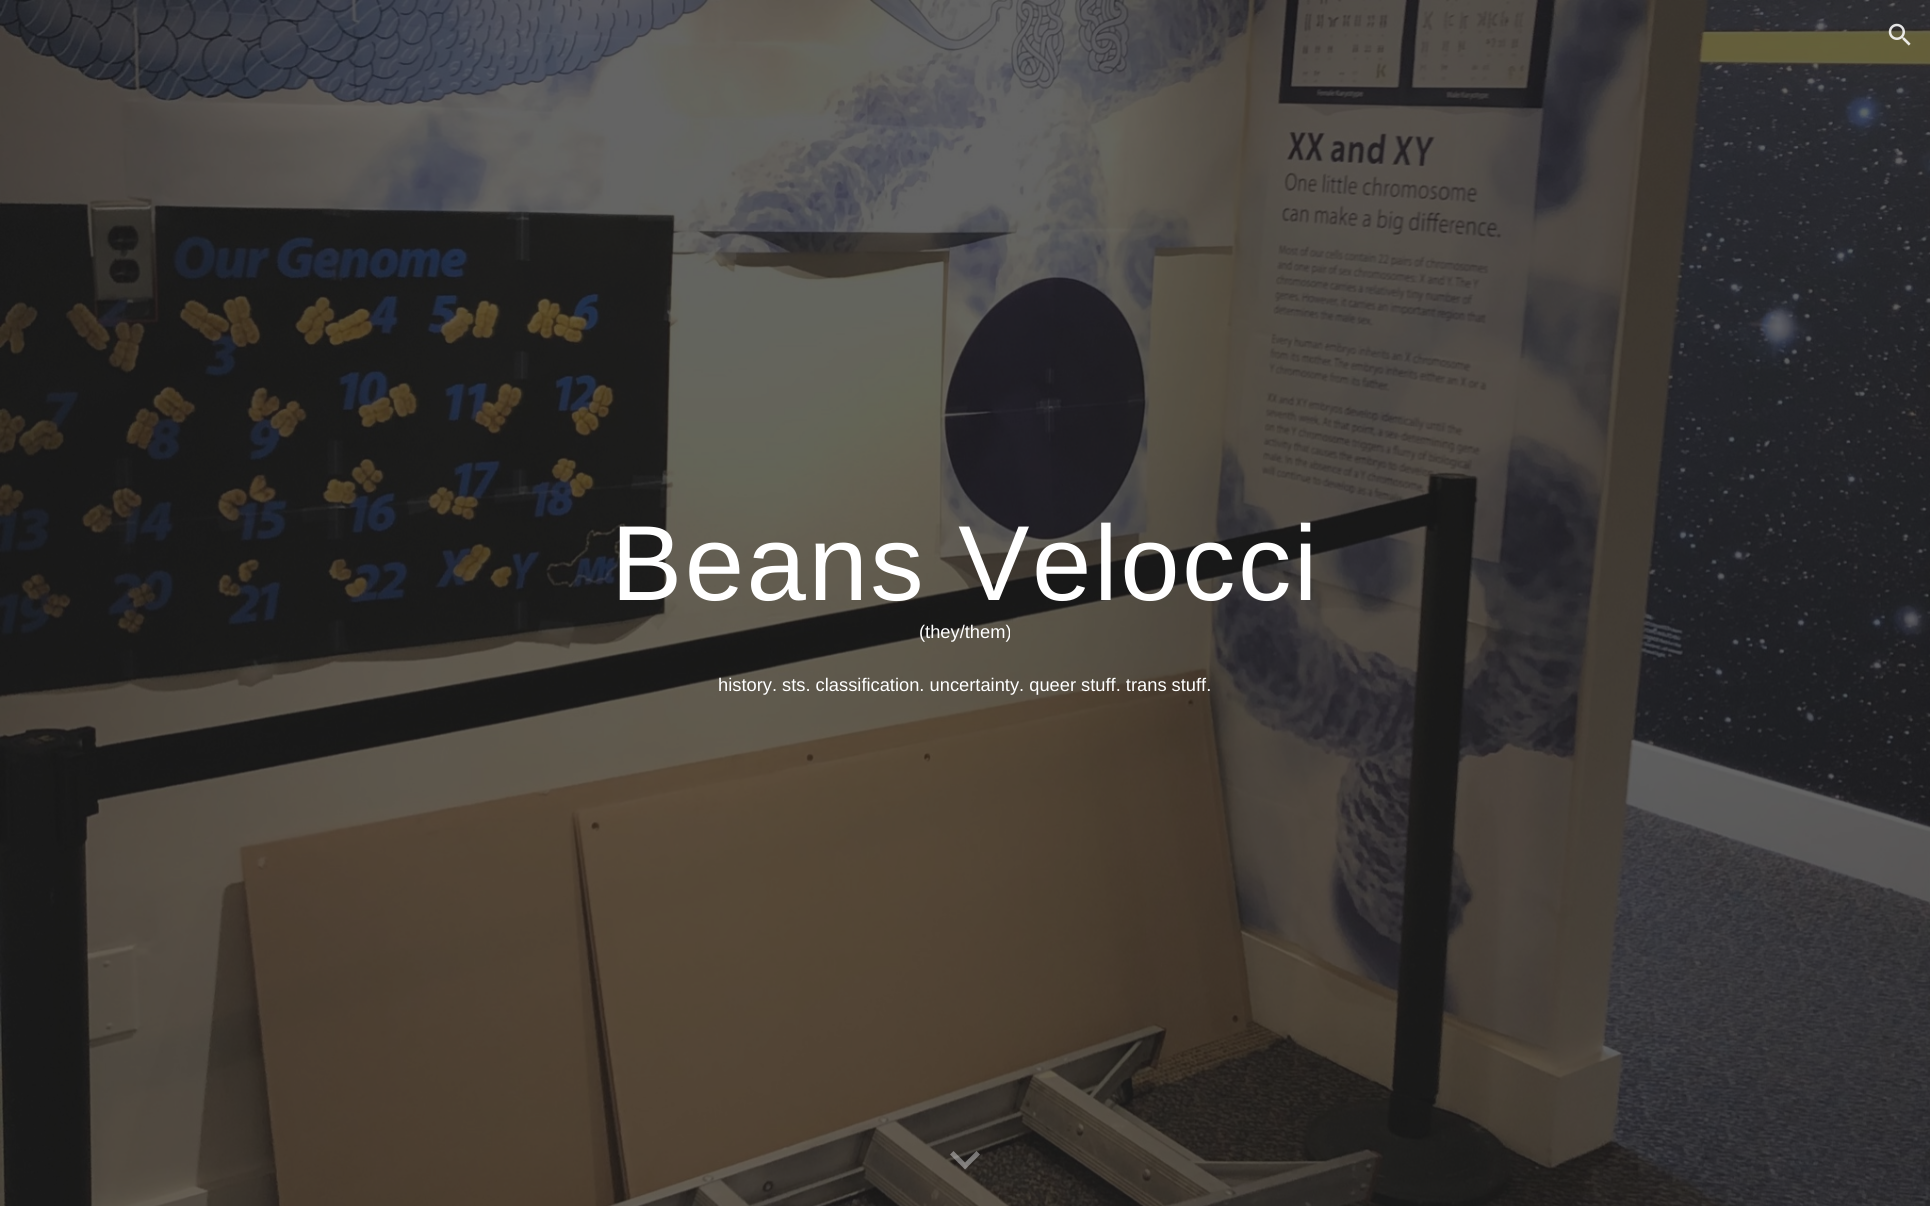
import math
import cairo

surface = cairo.ImageSurface(cairo.FORMAT_RGB24, 1930, 1206)
cr = cairo.Context(surface)
options = cairo.FontOptions()
options.set_hint_metrics(cairo.HINT_METRICS_OFF)
options.set_hint_style(cairo.HINT_STYLE_NONE)
cr.set_font_options(options)
cr.set_miter_limit(4)


def rgb(code):
    cr.set_source_rgb(*(v / 255 for v in bytes.fromhex(code[-6:])))


def tracked(x, y, s, letter, word):
    cr.move_to(x, y)
    for ch in s:
        cr.show_text(ch)
        cr.rel_move_to(letter + word * (ch == ' '), 0)


def image(path, x, y, w, h):
    cr.save()
    cr.set_source_surface(cairo.ImageSurface.create_from_png(path), x, y)
    cr.rectangle(x, y, w, h)
    cr.fill()
    cr.restore()


rgb("#ffffff")
cr.paint()
image("img/2.png", 0, 0, 1930, 1206)
image("img/1.png", 1888, 23, 23, 23)
cr.set_source_rgba(1, 1, 1, 0.4)
cr.new_path()
cr.move_to(953.5, 1151)
cr.line_to(965, 1162.5)
cr.line_to(976.5, 1151)
cr.line_to(980, 1154.5)
cr.line_to(965, 1169.5)
cr.line_to(950, 1154.5)
cr.close_path()
cr.fill()
cr.select_font_face("Liberation Sans")
cr.set_font_size(106.75)
rgb("#ffffff")
tracked(611, 600, "Beans Velocci", 2.5, 0)
cr.set_font_size(18.3)
cr.move_to(919, 638)
cr.show_text("(they/them)")
cr.move_to(718, 691)
cr.show_text("history. sts. classification. uncertainty. queer stuff. trans stuff.")
surface.write_to_png("page.png")
